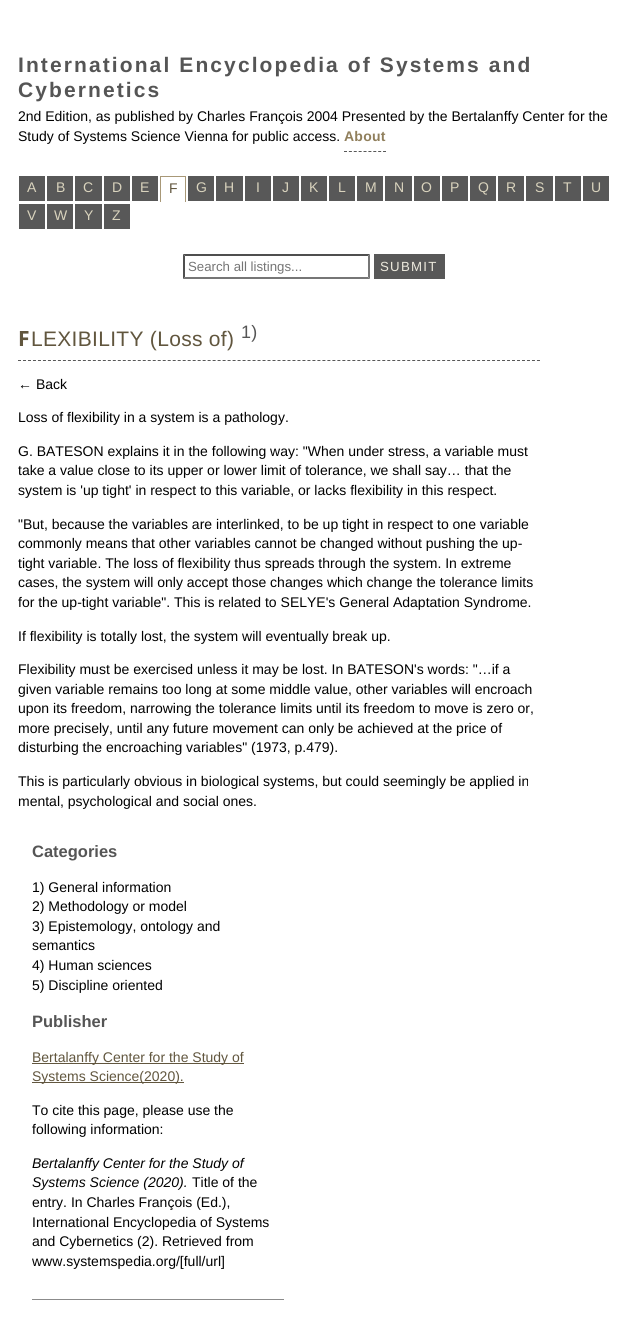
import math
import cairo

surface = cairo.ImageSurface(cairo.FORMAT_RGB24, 628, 1337)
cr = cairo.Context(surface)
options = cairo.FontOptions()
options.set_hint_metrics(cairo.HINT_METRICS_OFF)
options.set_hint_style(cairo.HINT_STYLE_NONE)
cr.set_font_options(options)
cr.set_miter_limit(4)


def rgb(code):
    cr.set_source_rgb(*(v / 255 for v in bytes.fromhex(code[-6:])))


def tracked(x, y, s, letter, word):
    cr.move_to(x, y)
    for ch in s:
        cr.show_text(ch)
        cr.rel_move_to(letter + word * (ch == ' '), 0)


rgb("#ffffff")
cr.paint()
cr.new_path()
cr.move_to(344, 151.5)
cr.line_to(386, 151.5)
rgb("#585858")
cr.set_line_width(1)
cr.set_dash([3, 1.88])
cr.stroke()
for x, y, w, h, color in [
    (19, 176, 26, 25, "#585858"),
    (47, 176, 26, 25, "#585858"),
    (75, 176, 27, 25, "#585858"),
    (104, 176, 26, 25, "#585858"),
    (132, 176, 26, 25, "#585858"),
    (160, 176, 26, 1, "#a89877"),
    (185, 176, 1, 26, "#a89877"),
    (160, 176, 1, 26, "#a89877"),
    (188, 176, 26, 25, "#585858"),
    (216, 176, 27, 25, "#585858"),
    (245, 176, 26, 25, "#585858"),
    (273, 176, 26, 25, "#585858"),
    (301, 176, 26, 25, "#585858"),
    (329, 176, 26, 25, "#585858"),
    (357, 176, 26, 25, "#585858"),
    (385, 176, 27, 25, "#585858"),
    (414, 176, 26, 25, "#585858"),
    (442, 176, 26, 25, "#585858"),
    (470, 176, 26, 25, "#585858"),
    (498, 176, 26, 25, "#585858"),
    (526, 176, 27, 25, "#585858"),
    (555, 176, 26, 25, "#585858"),
    (583, 176, 26, 25, "#585858"),
    (19, 204, 26, 25, "#585858"),
    (47, 204, 26, 25, "#585858"),
    (75, 204, 27, 25, "#585858"),
    (104, 204, 26, 25, "#585858"),
]:
    rgb(color)
    cr.rectangle(x, y, w, h)
    cr.fill()
rgb("#4f4f4f")
cr.new_path()
cr.move_to(183, 254)
cr.line_to(370, 254)
cr.line_to(368, 256)
cr.line_to(185, 256)
cr.close_path()
cr.fill()
rgb("#767676")
cr.new_path()
cr.move_to(370, 254)
cr.line_to(370, 279)
cr.line_to(368, 277)
cr.line_to(368, 256)
cr.close_path()
cr.fill()
cr.new_path()
cr.move_to(370, 279)
cr.line_to(183, 279)
cr.line_to(185, 277)
cr.line_to(368, 277)
cr.close_path()
cr.fill()
rgb("#4f4f4f")
cr.new_path()
cr.move_to(183, 279)
cr.line_to(183, 254)
cr.line_to(185, 256)
cr.line_to(185, 277)
cr.close_path()
cr.fill()
rgb("#585858")
cr.rectangle(374, 254, 71, 25)
cr.fill()
cr.new_path()
cr.move_to(18, 360.5)
cr.line_to(540, 360.5)
cr.set_dash([3, 1.99])
cr.stroke()
for x, y, w, h, color in [
    (32, 1063, 212, 1, "#61563e"),
    (32, 1082, 152, 1, "#61563e"),
    (32, 1299, 252, 1, "#8b8b8b"),
]:
    rgb(color)
    cr.rectangle(x, y, w, h)
    cr.fill()
cr.select_font_face("Liberation Sans", cairo.FONT_SLANT_NORMAL, cairo.FONT_WEIGHT_BOLD)
cr.set_font_size(21)
rgb("#555555")
tracked(18, 72, "International Encyclopedia of Systems and", 2.1, 0)
tracked(18, 97, "Cybernetics", 2.1, 0)
cr.select_font_face("Liberation Sans")
cr.set_font_size(14)
rgb("#000000")
cr.move_to(18, 121)
cr.show_text("2nd Edition, as published by Charles François 2004 Presented by the Bertalanffy Center for the")
cr.move_to(18, 141)
cr.show_text("Study of Systems Science Vienna for public access.")
cr.select_font_face("Liberation Sans", cairo.FONT_SLANT_NORMAL, cairo.FONT_WEIGHT_BOLD)
rgb("#907f5c")
tracked(344, 141, "About", 0.25, 0)
cr.select_font_face("Liberation Sans")
rgb("#d9d3bd")
for x, y, s in [
    (27, 192, "A"),
    (56, 192, "B"),
    (83, 192, "C"),
    (112, 192, "D"),
    (140, 192, "E"),
]:
    cr.move_to(x, y)
    cr.show_text(s)
rgb("#61563e")
cr.move_to(169, 193)
cr.show_text("F")
rgb("#d9d3bd")
for x, y, s in [
    (196, 192, "G"),
    (224, 192, "H"),
    (256, 192, "I"),
    (282, 192, "J"),
    (309, 192, "K"),
    (338, 192, "L"),
    (365, 192, "M"),
    (394, 192, "N"),
    (421, 192, "O"),
    (450, 192, "P"),
    (478, 192, "Q"),
    (506, 192, "R"),
    (535, 192, "S"),
    (563, 192, "T"),
    (591, 192, "U"),
    (27, 220, "V"),
    (54, 220, "W"),
    (84, 220, "Y"),
    (112, 220, "Z"),
]:
    cr.move_to(x, y)
    cr.show_text(s)
cr.set_font_size(13.25)
rgb("#757575")
cr.move_to(188, 271)
cr.show_text("Search all listings...")
rgb("#ece9dd")
tracked(380, 271, "SUBMIT", 1.25, 0)
cr.select_font_face("Noto Sans", cairo.FONT_SLANT_NORMAL, cairo.FONT_WEIGHT_BOLD)
cr.set_font_size(21)
rgb("#61563e")
tracked(18, 346, "F", 0.3, 0)
cr.select_font_face("Liberation Sans")
tracked(31, 346, "LEXIBILITY (Loss of)", 0.3, 0)
cr.set_font_size(18)
rgb("#555555")
tracked(241, 338, "1)", 0.3, 0)
cr.set_font_size(14)
rgb("#000000")
for x, y, s in [
    (18, 389, "← Back"),
    (18, 422, "Loss of flexibility in a system is a pathology."),
    (18, 456, "G. BATESON explains it in the following way: \"When under stress, a variable must"),
    (18, 475, "take a value close to its upper or lower limit of tolerance, we shall say… that the"),
    (18, 495, "system is 'up tight' in respect to this variable, or lacks flexibility in this respect."),
    (18, 529, "\"But, because the variables are interlinked, to be up tight in respect to one variable"),
    (18, 548, "commonly means that other variables cannot be changed without pushing the up-"),
    (18, 568, "tight variable. The loss of flexibility thus spreads through the system. In extreme"),
    (18, 587, "cases, the system will only accept those changes which change the tolerance limits"),
    (18, 607, "for the up-tight variable\". This is related to SELYE's General Adaptation Syndrome."),
    (18, 641, "If flexibility is totally lost, the system will eventually break up."),
    (18, 674, "Flexibility must be exercised unless it may be lost. In BATESON's words: \"…if a"),
    (18, 694, "given variable remains too long at some middle value, other variables will encroach"),
    (18, 713, "upon its freedom, narrowing the tolerance limits until its freedom to move is zero or,"),
    (18, 733, "more precisely, until any future movement can only be achieved at the price of"),
    (18, 752, "disturbing the encroaching variables\" (1973, p.479)."),
    (18, 786, "This is particularly obvious in biological systems, but could seemingly be applied in"),
    (18, 806, "mental, psychological and social ones."),
]:
    cr.move_to(x, y)
    cr.show_text(s)
cr.select_font_face("Liberation Sans", cairo.FONT_SLANT_NORMAL, cairo.FONT_WEIGHT_BOLD)
cr.set_font_size(16.5)
rgb("#555555")
cr.move_to(32, 857)
cr.show_text("Categories")
cr.select_font_face("Liberation Sans")
cr.set_font_size(14)
rgb("#000000")
for x, y, s in [
    (32, 892, "1) General information"),
    (32, 911, "2) Methodology or model"),
    (32, 931, "3) Epistemology, ontology and"),
    (32, 950, "semantics"),
    (32, 970, "4) Human sciences"),
    (32, 990, "5) Discipline oriented"),
]:
    cr.move_to(x, y)
    cr.show_text(s)
cr.select_font_face("Liberation Sans", cairo.FONT_SLANT_NORMAL, cairo.FONT_WEIGHT_BOLD)
cr.set_font_size(16.5)
rgb("#555555")
cr.move_to(32, 1027)
cr.show_text("Publisher")
cr.select_font_face("Liberation Sans")
cr.set_font_size(14)
rgb("#61563e")
cr.move_to(32, 1062)
cr.show_text("Bertalanffy Center for the Study of")
cr.move_to(32, 1081)
cr.show_text("Systems Science(2020).")
rgb("#000000")
cr.move_to(32, 1115)
cr.show_text("To cite this page, please use the")
cr.move_to(32, 1134)
cr.show_text("following information:")
cr.select_font_face("Liberation Sans", cairo.FONT_SLANT_ITALIC)
cr.move_to(32, 1168)
cr.show_text("Bertalanffy Center for the Study of")
cr.move_to(32, 1187)
cr.show_text("Systems Science (2020).")
cr.select_font_face("Liberation Sans")
for x, y, s in [
    (192, 1187, "Title of the"),
    (32, 1207, "entry. In Charles François (Ed.),"),
    (32, 1227, "International Encyclopedia of Systems"),
    (32, 1246, "and Cybernetics (2). Retrieved from"),
    (32, 1266, "www.systemspedia.org/[full/url]"),
]:
    cr.move_to(x, y)
    cr.show_text(s)
surface.write_to_png("page.png")
